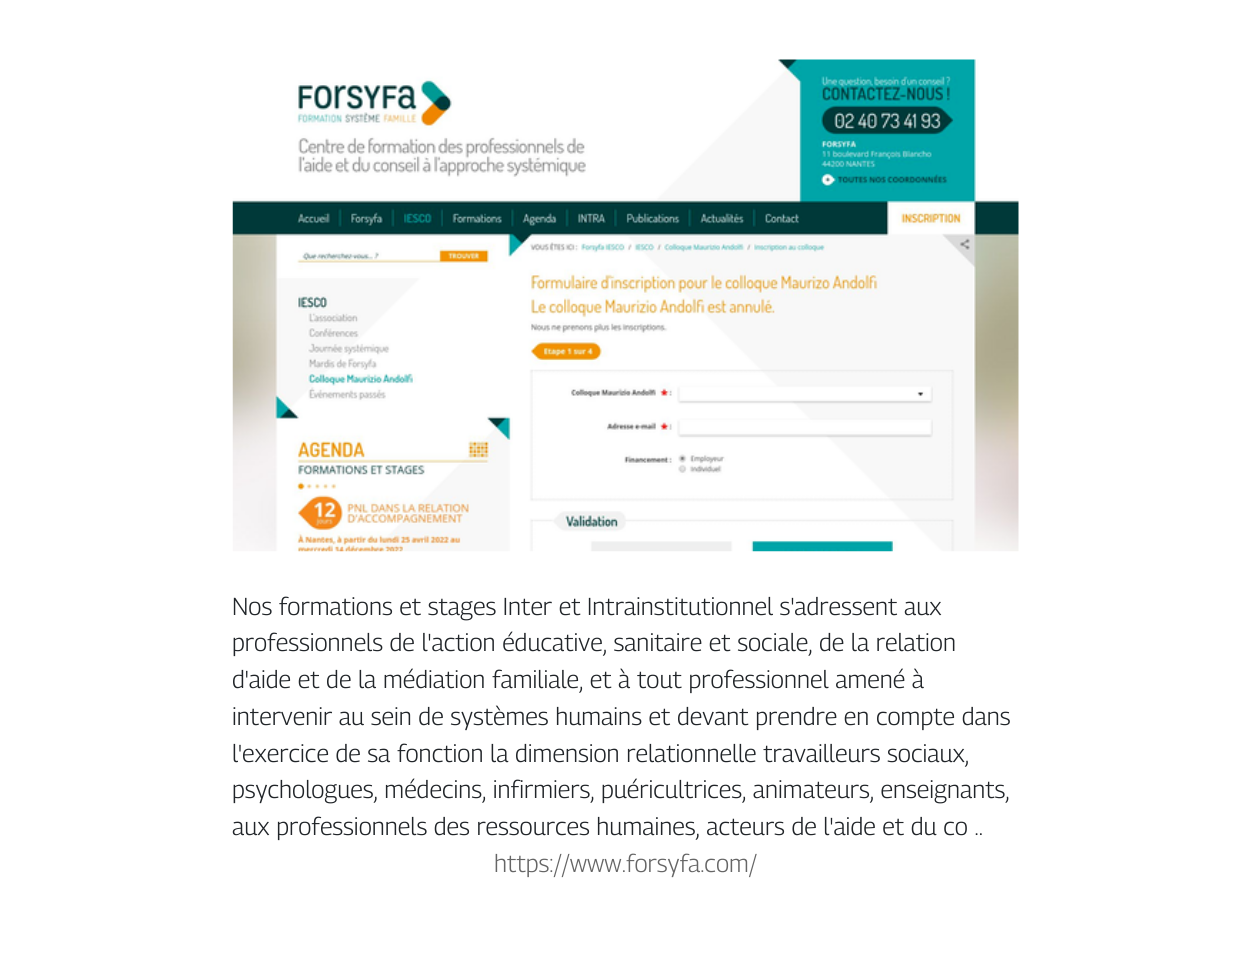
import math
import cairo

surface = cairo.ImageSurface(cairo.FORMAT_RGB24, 1250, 965)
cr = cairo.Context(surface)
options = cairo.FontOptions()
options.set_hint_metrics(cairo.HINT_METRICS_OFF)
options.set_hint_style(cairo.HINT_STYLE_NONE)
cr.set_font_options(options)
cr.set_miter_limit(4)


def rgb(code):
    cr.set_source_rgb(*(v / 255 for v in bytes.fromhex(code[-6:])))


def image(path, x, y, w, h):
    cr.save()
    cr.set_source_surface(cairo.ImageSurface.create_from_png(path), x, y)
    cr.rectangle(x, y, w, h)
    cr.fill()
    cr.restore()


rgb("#ffffff")
cr.paint()
image("img/1.png", 232, 59, 787, 493)
cr.select_font_face("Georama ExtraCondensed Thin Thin")
cr.set_font_size(24.5)
rgb("#212529")
for x, y, s in [
    (232, 615, "Nos formations et stages Inter et Intrainstitutionnel s'adressent aux"),
    (232, 651, "professionnels de l'action éducative, sanitaire et sociale, de la relation"),
    (232, 688, "d'aide et de la médiation familiale, et à tout professionnel amené à"),
    (232, 725, "intervenir au sein de systèmes humains et devant prendre en compte dans"),
    (232, 762, "l'exercice de sa fonction la dimension relationnelle travailleurs sociaux,"),
    (232, 798, "psychologues, médecins, infirmiers, puéricultrices, animateurs, enseignants,"),
    (232, 835, "aux professionnels des ressources humaines, acteurs de l'aide et du co .."),
]:
    cr.move_to(x, y)
    cr.show_text(s)
rgb("#666666")
cr.move_to(494, 872)
cr.show_text("https://www.forsyfa.com/")
surface.write_to_png("page.png")
